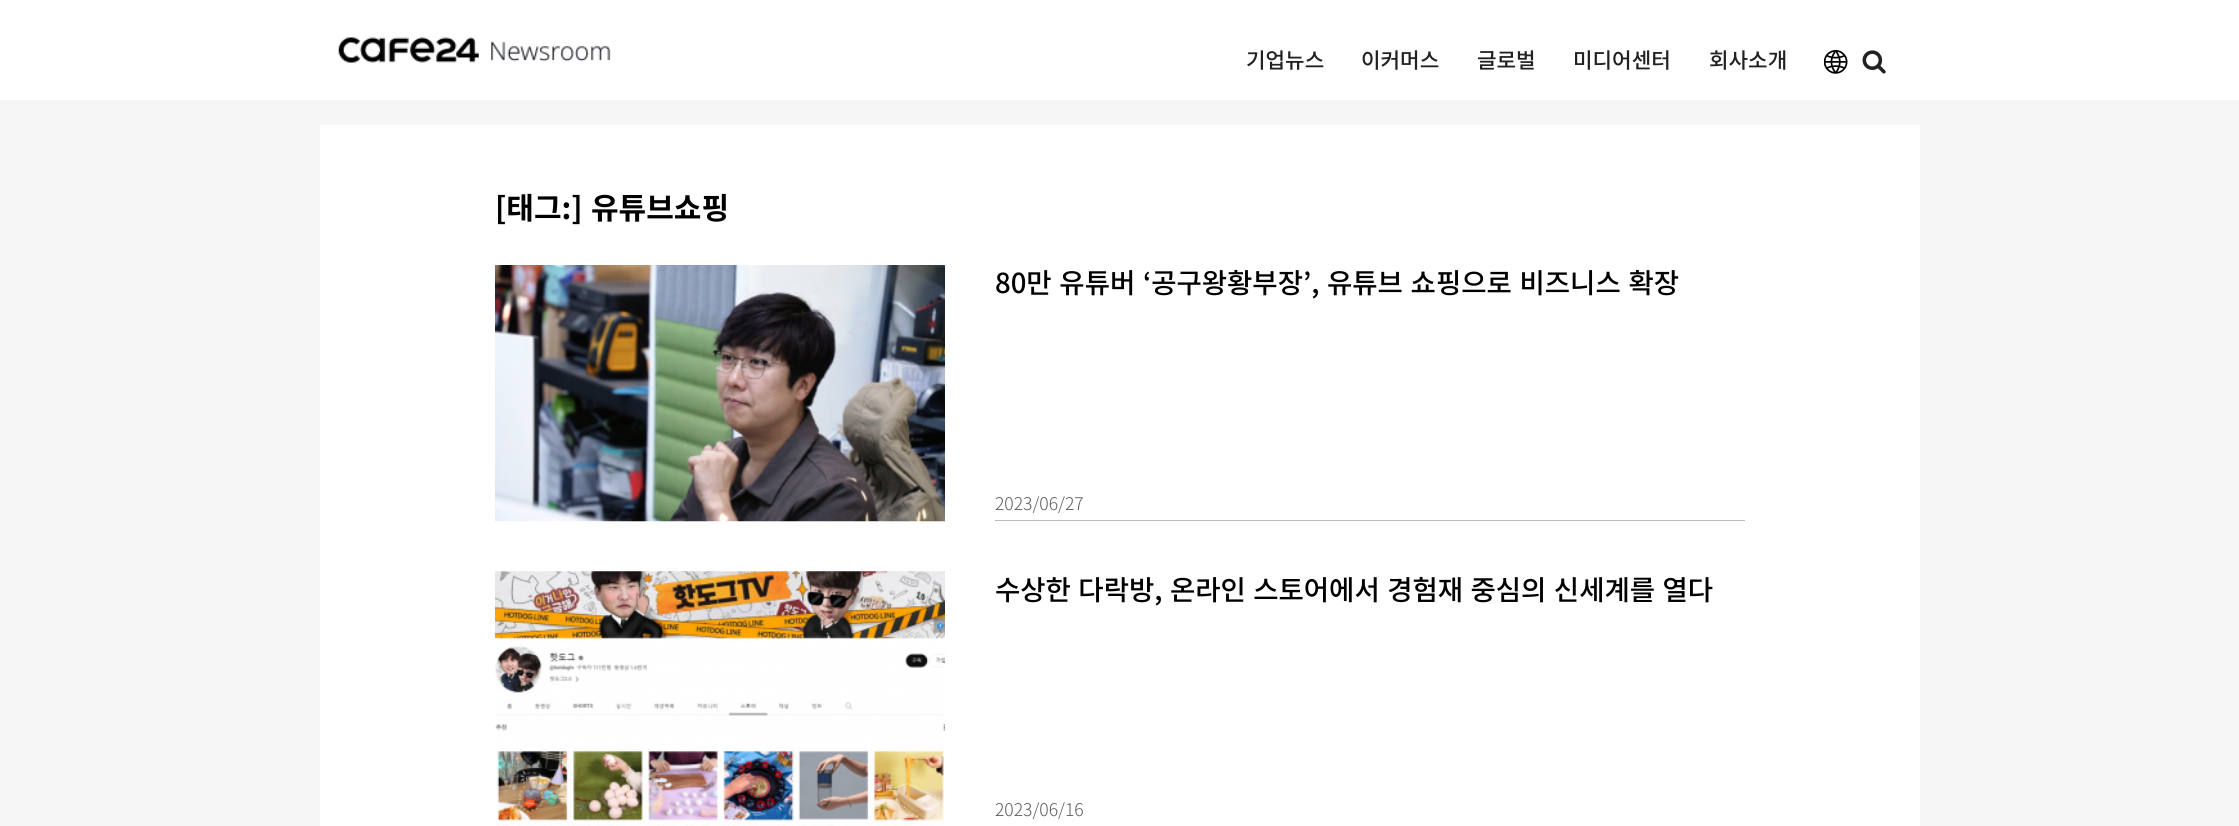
import math
import cairo

surface = cairo.ImageSurface(cairo.FORMAT_RGB24, 2239, 826)
cr = cairo.Context(surface)
options = cairo.FontOptions()
options.set_hint_metrics(cairo.HINT_METRICS_OFF)
options.set_hint_style(cairo.HINT_STYLE_NONE)
cr.set_font_options(options)
cr.set_miter_limit(4)


def rgb(code):
    cr.set_source_rgb(*(v / 255 for v in bytes.fromhex(code[-6:])))


def tracked(x, y, s, letter, word):
    cr.move_to(x, y)
    for ch in s:
        cr.show_text(ch)
        cr.rel_move_to(letter + word * (ch == ' '), 0)


def image(path, x, y, w, h):
    cr.save()
    cr.set_source_surface(cairo.ImageSurface.create_from_png(path), x, y)
    cr.rectangle(x, y, w, h)
    cr.fill()
    cr.restore()


rgb("#f6f6f6")
cr.paint()
rgb("#ffffff")
cr.rectangle(0, 0, 2239, 100)
cr.fill()
image("img/1.png", 338, 37, 273, 26)
image("img/2.png", 1824, 50, 24, 24)
image("img/3.png", 1862, 50, 24, 24)
cr.rectangle(320, 125, 1600, 701)
cr.fill()
image("img/4.png", 495, 265, 450, 257)
rgb("#bcbcbc")
cr.rectangle(995, 520, 750, 1)
cr.fill()
image("img/5.png", 495, 571, 450, 255)
cr.select_font_face("Noto Sans KR Medium")
cr.set_font_size(21.25)
rgb("#212121")
for x, y, s in [
    (1246, 68, "기업뉴스"),
    (1361, 68, "이커머스"),
    (1477, 68, "글로벌"),
    (1573, 68, "미디어센터"),
    (1709, 68, "회사소개"),
]:
    cr.move_to(x, y)
    cr.show_text(s)
cr.select_font_face("Noto Sans KR", cairo.FONT_SLANT_NORMAL, cairo.FONT_WEIGHT_BOLD)
cr.set_font_size(30)
rgb("#000000")
cr.move_to(495, 219)
cr.show_text("[태그:]")
cr.move_to(591, 219)
cr.show_text("유튜브쇼핑")
cr.select_font_face("Noto Sans KR Medium")
cr.set_font_size(27.5)
tracked(995, 293, "80만 유튜버 ‘공구왕황부장’, 유튜브 쇼핑으로 비즈니스 확장", 0, 1.5)
cr.select_font_face("Noto Sans KR Light")
cr.set_font_size(17.5)
rgb("#5d5d5d")
cr.move_to(995, 510)
cr.show_text("2023/06/27")
cr.select_font_face("Noto Sans KR Medium")
cr.set_font_size(27.5)
rgb("#000000")
tracked(995, 600, "수상한 다락방, 온라인 스토어에서 경험재 중심의 신세계를 열다", 0, 1.25)
cr.select_font_face("Noto Sans KR Light")
cr.set_font_size(17.5)
rgb("#5d5d5d")
cr.move_to(995, 816)
cr.show_text("2023/06/16")
surface.write_to_png("page.png")
